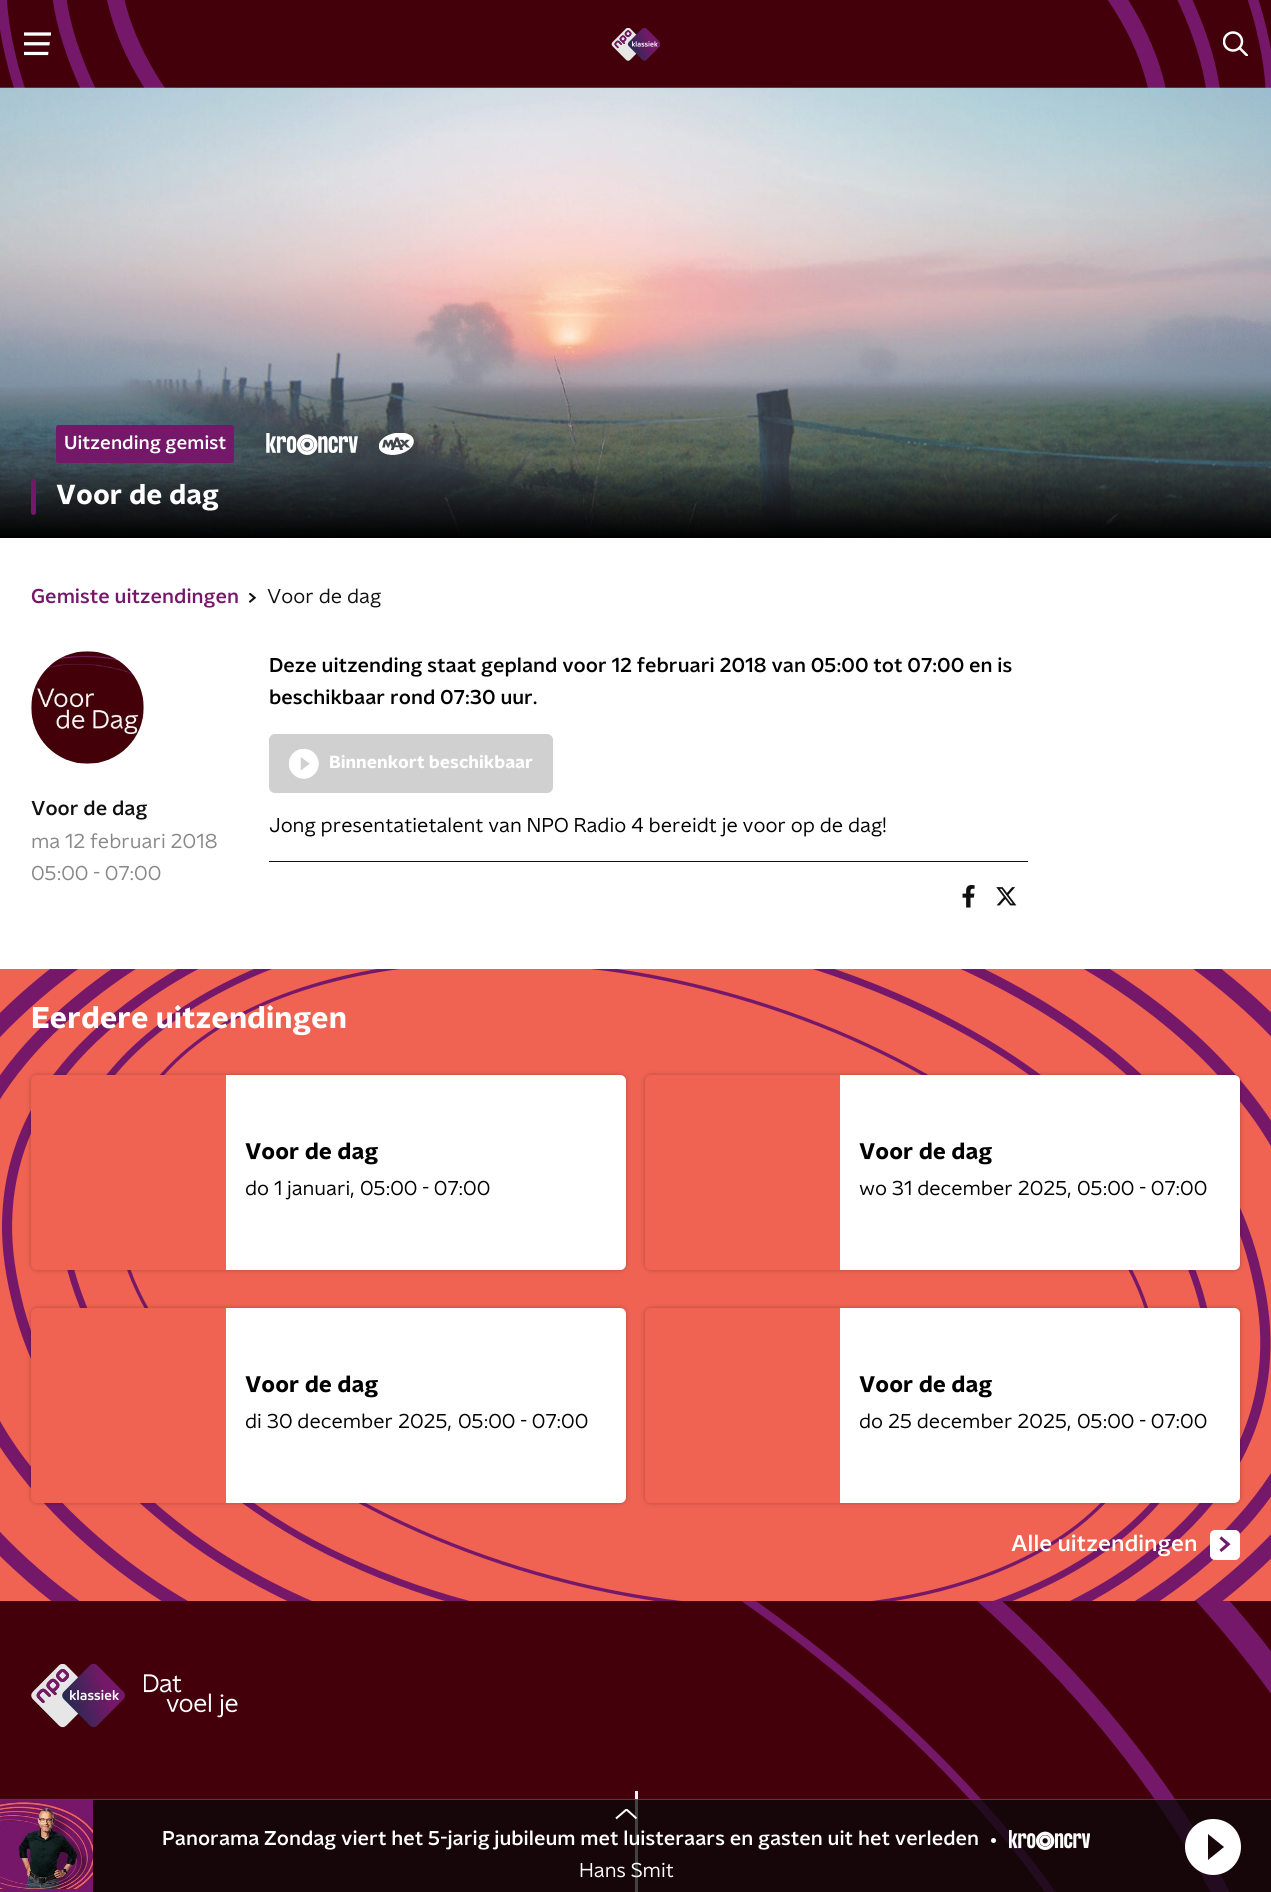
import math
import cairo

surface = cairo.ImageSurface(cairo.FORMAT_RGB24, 1271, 1892)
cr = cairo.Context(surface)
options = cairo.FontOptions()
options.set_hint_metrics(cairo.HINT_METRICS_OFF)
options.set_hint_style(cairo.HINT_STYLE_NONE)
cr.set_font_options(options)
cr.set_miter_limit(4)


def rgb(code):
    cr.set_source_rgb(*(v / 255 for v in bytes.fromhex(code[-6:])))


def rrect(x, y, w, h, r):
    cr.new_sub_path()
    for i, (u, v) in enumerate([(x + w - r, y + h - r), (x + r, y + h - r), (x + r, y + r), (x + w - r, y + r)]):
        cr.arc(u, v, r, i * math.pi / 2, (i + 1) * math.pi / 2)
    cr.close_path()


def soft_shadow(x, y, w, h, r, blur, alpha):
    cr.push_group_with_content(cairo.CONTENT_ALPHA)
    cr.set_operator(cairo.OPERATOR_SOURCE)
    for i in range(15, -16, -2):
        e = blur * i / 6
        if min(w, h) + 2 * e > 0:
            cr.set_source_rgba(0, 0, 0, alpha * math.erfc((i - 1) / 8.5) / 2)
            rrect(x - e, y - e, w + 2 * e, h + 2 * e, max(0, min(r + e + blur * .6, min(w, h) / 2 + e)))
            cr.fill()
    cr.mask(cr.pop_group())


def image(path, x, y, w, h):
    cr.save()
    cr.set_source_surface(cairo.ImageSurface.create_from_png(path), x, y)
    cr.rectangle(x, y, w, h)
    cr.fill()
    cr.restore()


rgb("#ffffff")
cr.paint()
rgb("#43000b")
cr.rectangle(0, 0, 1271, 88)
cr.fill()
image("img/1.png", 0, 0, 1271, 88)
image("img/2.png", 24, 32, 27, 24)
image("img/3.png", 611, 28, 49, 33)
cr.save()
cr.rectangle(1223, 31, 25, 25)
cr.clip()
cr.arc(1233, 41.5, 9, 0, 2 * math.pi)
rgb("#ffffff")
cr.set_line_width(2.5)
cr.stroke()
cr.new_path()
cr.move_to(1239.5, 48)
cr.line_to(1247, 55.5)
cr.set_line_cap(cairo.LINE_CAP_SQUARE)
cr.stroke()
cr.restore()
rgb("#000000")
cr.rectangle(0, 537, 1271, 1)
cr.fill()
image("img/4.png", 0, 87, 1271, 451)
gradient = cairo.LinearGradient(636, 462, 636, 538)
gradient.add_color_stop_rgba(0, 0, 0, 0, 0)
gradient.add_color_stop_rgba(1, 0, 0, 0, 1)
cr.set_source(gradient)
cr.rectangle(0, 464, 1271, 74)
cr.fill()
rgb("#761869")
rrect(56, 425, 178, 38, 2.5)
cr.fill()
image("img/5.png", 266, 433, 92, 22)
image("img/6.png", 379, 433, 35, 22)
rrect(31, 479, 5, 36, 2.5)
cr.fill()
image("img/7.png", 248, 593, 9, 10)
image("img/8.png", 31, 651, 113, 113)
rgb("#d0d0d0")
rrect(269, 734, 284, 59, 6)
cr.fill()
image("img/9.png", 289, 749, 30, 30)
rgb("#101010")
cr.rectangle(269, 861, 759, 1)
cr.fill()
image("img/10.png", 962, 885, 13, 23)
image("img/11.png", 996, 887, 21, 19)
rgb("#f06352")
cr.rectangle(0, 969, 1271, 632)
cr.fill()
image("img/12.png", 0, 969, 1271, 632)
rgb("#000000")
soft_shadow(31, 1075, 595, 195, 6, 2.5, 0.25)
rgb("#f06352")
cr.new_path()
cr.move_to(37, 1075)
cr.line_to(226, 1075)
cr.line_to(226, 1270)
cr.line_to(37, 1270)
cr.curve_to(33.5, 1270, 31, 1267.5, 31, 1264)
cr.line_to(31, 1081)
cr.curve_to(31, 1077.5, 33.5, 1075, 37, 1075)
cr.close_path()
cr.fill()
rgb("#ffffff")
cr.new_path()
cr.move_to(226, 1075)
cr.line_to(620, 1075)
cr.curve_to(623.5, 1075, 626, 1077.5, 626, 1081)
cr.line_to(626, 1264)
cr.curve_to(626, 1267.5, 623.5, 1270, 620, 1270)
cr.line_to(226, 1270)
cr.close_path()
cr.fill()
rgb("#000000")
soft_shadow(645, 1075, 595, 195, 6, 2.5, 0.25)
rgb("#f06352")
cr.new_path()
cr.move_to(651, 1075)
cr.line_to(840, 1075)
cr.line_to(840, 1270)
cr.line_to(651, 1270)
cr.curve_to(647.5, 1270, 645, 1267.5, 645, 1264)
cr.line_to(645, 1081)
cr.curve_to(645, 1077.5, 647.5, 1075, 651, 1075)
cr.close_path()
cr.fill()
rgb("#ffffff")
cr.new_path()
cr.move_to(840, 1075)
cr.line_to(1234, 1075)
cr.curve_to(1237.5, 1075, 1240, 1077.5, 1240, 1081)
cr.line_to(1240, 1264)
cr.curve_to(1240, 1267.5, 1237.5, 1270, 1234, 1270)
cr.line_to(840, 1270)
cr.close_path()
cr.fill()
rgb("#000000")
soft_shadow(31, 1308, 595, 195, 6, 2.5, 0.25)
rgb("#f06352")
cr.new_path()
cr.move_to(37, 1308)
cr.line_to(226, 1308)
cr.line_to(226, 1503)
cr.line_to(37, 1503)
cr.curve_to(33.5, 1503, 31, 1500.5, 31, 1497)
cr.line_to(31, 1314)
cr.curve_to(31, 1310.5, 33.5, 1308, 37, 1308)
cr.close_path()
cr.fill()
rgb("#ffffff")
cr.new_path()
cr.move_to(226, 1308)
cr.line_to(620, 1308)
cr.curve_to(623.5, 1308, 626, 1310.5, 626, 1314)
cr.line_to(626, 1497)
cr.curve_to(626, 1500.5, 623.5, 1503, 620, 1503)
cr.line_to(226, 1503)
cr.close_path()
cr.fill()
rgb("#000000")
soft_shadow(645, 1308, 595, 195, 6, 2.5, 0.25)
rgb("#f06352")
cr.new_path()
cr.move_to(651, 1308)
cr.line_to(840, 1308)
cr.line_to(840, 1503)
cr.line_to(651, 1503)
cr.curve_to(647.5, 1503, 645, 1500.5, 645, 1497)
cr.line_to(645, 1314)
cr.curve_to(645, 1310.5, 647.5, 1308, 651, 1308)
cr.close_path()
cr.fill()
rgb("#ffffff")
cr.new_path()
cr.move_to(840, 1308)
cr.line_to(1234, 1308)
cr.curve_to(1237.5, 1308, 1240, 1310.5, 1240, 1314)
cr.line_to(1240, 1497)
cr.curve_to(1240, 1500.5, 1237.5, 1503, 1234, 1503)
cr.line_to(840, 1503)
cr.close_path()
cr.fill()
image("img/13.png", 1210, 1530, 30, 30)
rgb("#43000b")
cr.rectangle(0, 1601, 1271, 291)
cr.fill()
image("img/14.png", 31, 1664, 94, 64)
image("img/15.png", 144, 1674, 94, 44)
rgb("#f1f1f1")
cr.rectangle(635, 1791, 3, 101)
cr.fill()
image("img/16.png", 741, 1601, 530, 291)
cr.set_source_rgba(0.035, 0.035, 0.035, 0.75)
cr.rectangle(0, 1799, 1271, 93)
cr.fill()
cr.set_source_rgba(0.373, 0.373, 0.373, 0.65)
cr.rectangle(0, 1799, 1271, 1)
cr.fill()
image("img/17.png", 0, 1800, 93, 89)
rgb("#761869")
cr.rectangle(0, 1889, 93, 3)
cr.fill()
cr.save()
cr.rectangle(615, 1809, 23, 11)
cr.clip()
cr.new_path()
cr.move_to(636.5, 1818.5)
cr.line_to(626.5, 1809.5)
cr.line_to(616, 1818.5)
rgb("#ffffff")
cr.stroke()
cr.restore()
rgb("#ffffff")
cr.arc(993.5, 1840.5, 2.5, 0, 2 * math.pi)
cr.fill()
image("img/18.png", 1009, 1830, 81, 20)
cr.new_path()
cr.move_to(1213, 1819)
cr.curve_to(1198, 1819, 1185, 1831, 1185, 1847)
cr.curve_to(1185, 1862, 1198, 1875, 1213, 1875)
cr.curve_to(1229, 1875, 1241, 1862, 1241, 1847)
cr.curve_to(1241, 1831, 1229, 1819, 1213, 1819)
cr.close_path()
cr.move_to(1208, 1860)
cr.line_to(1208, 1834)
cr.line_to(1224, 1847)
cr.close_path()
cr.fill()
cr.select_font_face("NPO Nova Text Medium")
cr.set_font_size(18.75)
cr.move_to(64, 449)
cr.show_text("Uitzending gemist")
cr.select_font_face("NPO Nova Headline", cairo.FONT_SLANT_NORMAL, cairo.FONT_WEIGHT_BOLD)
cr.set_font_size(27.5)
cr.move_to(56, 504)
cr.show_text("Voor de dag")
cr.select_font_face("NPO Nova Text Medium")
cr.set_font_size(20)
rgb("#761869")
cr.move_to(31, 603)
cr.show_text("Gemiste uitzendingen")
cr.select_font_face("NPO Nova Text")
rgb("#101010")
cr.move_to(267, 603)
cr.show_text("Voor de dag")
cr.select_font_face("NPO Nova Text Medium")
cr.move_to(31, 815)
cr.show_text("Voor de dag")
cr.select_font_face("NPO Nova Text")
rgb("#888888")
cr.move_to(31, 848)
cr.show_text("ma 12 februari 2018")
cr.move_to(31, 880)
cr.show_text("05:00 - 07:00")
cr.select_font_face("NPO Nova Text Medium")
rgb("#000000")
cr.move_to(269, 672)
cr.show_text("Deze uitzending staat gepland voor 12 februari 2018 van 05:00 tot 07:00 en is")
cr.move_to(269, 704)
cr.show_text("beschikbaar rond 07:30 uur.")
cr.select_font_face("NPO Nova Headline", cairo.FONT_SLANT_NORMAL, cairo.FONT_WEIGHT_BOLD)
cr.set_font_size(17.5)
rgb("#ffffff")
cr.move_to(329, 768)
cr.show_text("Binnenkort beschikbaar")
cr.select_font_face("NPO Nova Text")
cr.set_font_size(20)
rgb("#000000")
cr.move_to(269, 832)
cr.show_text("Jong presentatietalent van NPO Radio 4 bereidt je voor op de dag!")
cr.select_font_face("NPO Nova Headline", cairo.FONT_SLANT_NORMAL, cairo.FONT_WEIGHT_BOLD)
cr.set_font_size(30)
rgb("#ffffff")
cr.move_to(31, 1028)
cr.show_text("Eerdere uitzendingen")
cr.set_font_size(22.5)
rgb("#000000")
cr.move_to(245, 1159)
cr.show_text("Voor de dag")
cr.select_font_face("NPO Nova Text")
cr.set_font_size(20)
cr.move_to(245, 1195)
cr.show_text("do 1 januari,")
cr.move_to(360, 1195)
cr.show_text("05:00 - 07:00")
cr.select_font_face("NPO Nova Headline", cairo.FONT_SLANT_NORMAL, cairo.FONT_WEIGHT_BOLD)
cr.set_font_size(22.5)
cr.move_to(859, 1159)
cr.show_text("Voor de dag")
cr.select_font_face("NPO Nova Text")
cr.set_font_size(20)
cr.move_to(859, 1195)
cr.show_text("wo 31 december 2025,")
cr.move_to(1077, 1195)
cr.show_text("05:00 - 07:00")
cr.select_font_face("NPO Nova Headline", cairo.FONT_SLANT_NORMAL, cairo.FONT_WEIGHT_BOLD)
cr.set_font_size(22.5)
cr.move_to(245, 1392)
cr.show_text("Voor de dag")
cr.select_font_face("NPO Nova Text")
cr.set_font_size(20)
cr.move_to(245, 1428)
cr.show_text("di 30 december 2025,")
cr.move_to(458, 1428)
cr.show_text("05:00 - 07:00")
cr.select_font_face("NPO Nova Headline", cairo.FONT_SLANT_NORMAL, cairo.FONT_WEIGHT_BOLD)
cr.set_font_size(22.5)
cr.move_to(859, 1392)
cr.show_text("Voor de dag")
cr.select_font_face("NPO Nova Text")
cr.set_font_size(20)
cr.move_to(859, 1428)
cr.show_text("do 25 december 2025,")
cr.move_to(1077, 1428)
cr.show_text("05:00 - 07:00")
cr.select_font_face("NPO Nova Text Medium")
cr.set_font_size(22.5)
rgb("#ffffff")
cr.move_to(1011, 1551)
cr.show_text("Alle uitzendingen")
cr.set_font_size(20)
cr.move_to(162, 1845)
cr.show_text("Panorama Zondag viert het 5-jarig jubileum met luisteraars en gasten uit het verleden")
cr.select_font_face("NPO Nova Text")
cr.move_to(579, 1877)
cr.show_text("Hans Smit")
surface.write_to_png("page.png")
